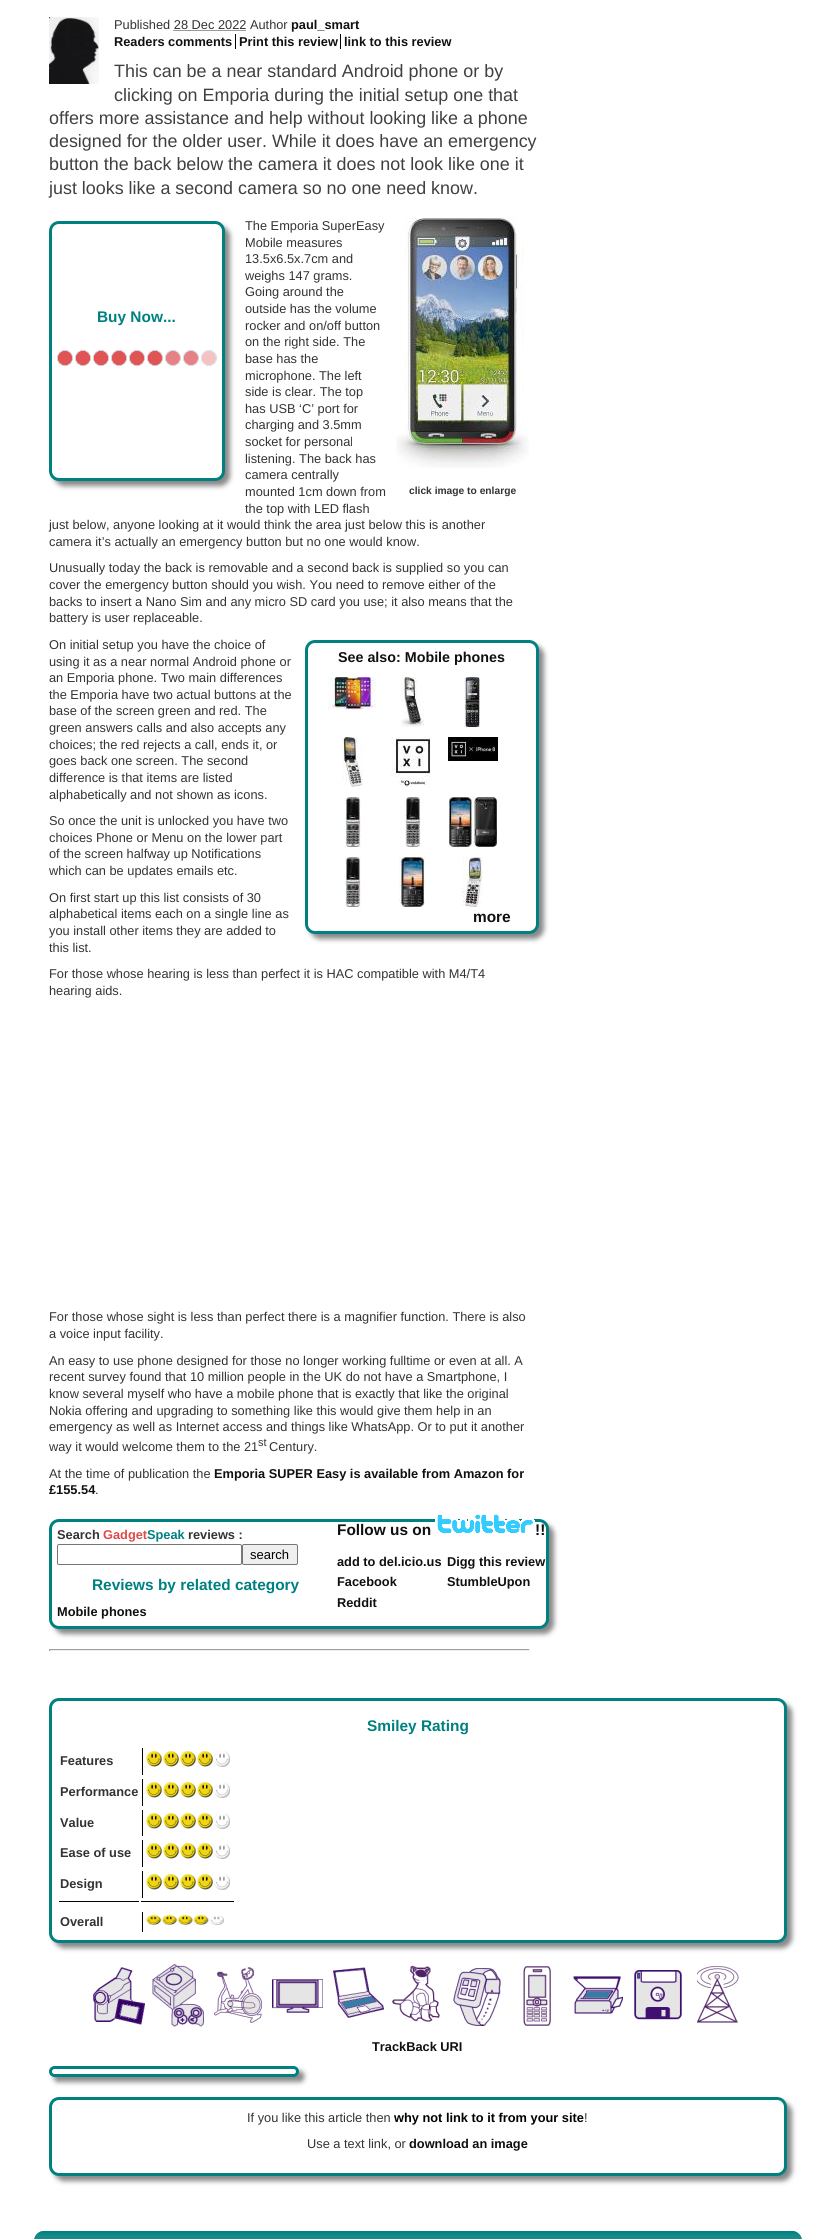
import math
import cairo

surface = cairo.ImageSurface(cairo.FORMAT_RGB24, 835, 2239)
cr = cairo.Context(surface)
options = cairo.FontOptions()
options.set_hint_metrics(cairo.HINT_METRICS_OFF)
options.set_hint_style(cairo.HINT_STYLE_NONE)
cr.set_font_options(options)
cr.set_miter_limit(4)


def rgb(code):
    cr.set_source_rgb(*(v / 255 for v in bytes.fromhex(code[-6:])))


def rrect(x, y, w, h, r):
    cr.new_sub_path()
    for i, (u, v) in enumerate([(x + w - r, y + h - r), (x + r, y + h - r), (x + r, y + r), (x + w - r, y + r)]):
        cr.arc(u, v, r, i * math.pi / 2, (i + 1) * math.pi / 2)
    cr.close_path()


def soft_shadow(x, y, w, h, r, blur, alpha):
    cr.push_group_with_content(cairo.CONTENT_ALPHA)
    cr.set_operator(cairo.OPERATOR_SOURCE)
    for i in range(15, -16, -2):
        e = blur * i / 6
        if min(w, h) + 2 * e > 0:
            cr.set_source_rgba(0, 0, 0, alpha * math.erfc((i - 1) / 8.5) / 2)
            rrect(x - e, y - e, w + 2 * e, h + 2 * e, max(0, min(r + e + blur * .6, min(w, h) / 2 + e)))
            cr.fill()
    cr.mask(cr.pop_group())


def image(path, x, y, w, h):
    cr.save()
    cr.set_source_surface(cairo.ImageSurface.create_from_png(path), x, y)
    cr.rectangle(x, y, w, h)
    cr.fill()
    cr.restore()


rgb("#ffffff")
cr.paint()
image("img/1.png", 49, 17, 50, 67)
cr.new_path()
cr.move_to(173.5, 30.5)
cr.line_to(246, 30.5)
rgb("#333333")
cr.set_line_width(1)
cr.set_dash([1, 1])
cr.stroke()
rgb("#000000")
cr.rectangle(235, 34, 1, 15)
cr.fill()
cr.rectangle(340, 34, 1, 15)
cr.fill()
rgb("#888888")
soft_shadow(54, 226, 176, 260, 10, 2.5, 1)
rgb("#ffffff")
rrect(50.5, 222.5, 173, 257, 8.5)
cr.fill_preserve()
rgb("#008080")
cr.set_line_width(3)
cr.set_dash([])
cr.stroke()
image("img/2.png", 57, 350, 160, 16)
image("img/3.png", 396, 218, 133, 250)
rgb("#888888")
soft_shadow(310, 645, 234, 294, 10, 2.5, 1)
rgb("#ffffff")
rrect(306.5, 641.5, 231, 291, 8.5)
cr.fill_preserve()
rgb("#008080")
cr.stroke()
image("img/4.png", 328, 677, 49, 33)
image("img/5.png", 401, 677, 23, 50)
image("img/6.png", 464, 677, 17, 50)
image("img/7.png", 342, 737, 22, 50)
image("img/8.png", 391, 737, 40, 50)
image("img/9.png", 448, 737, 50, 24)
image("img/10.png", 345, 797, 16, 50)
image("img/11.png", 405, 797, 16, 50)
image("img/12.png", 449, 797, 48, 50)
image("img/10.png", 345, 857, 16, 50)
image("img/13.png", 399, 857, 27, 50)
image("img/14.png", 462, 857, 21, 50)
rgb("#888888")
soft_shadow(54, 1524, 500, 110, 10, 2.5, 1)
rgb("#ffffff")
rrect(50.5, 1520.5, 497, 107, 8.5)
cr.fill_preserve()
rgb("#008080")
cr.stroke()
rrect(57.5, 1544.5, 184, 20, 1.5)
rgb("#767676")
cr.set_line_width(1)
cr.stroke()
rgb("#efefef")
rrect(242.5, 1544.5, 55, 20, 1.5)
cr.fill_preserve()
rgb("#767676")
cr.stroke()
image("img/15.png", 435, 1514, 100, 19)
for x, y, w, h, color in [
    (49, 1649, 481, 1, "#9f9f9f"),
    (529, 1649, 1, 2, "#eeeeee"),
    (49, 1650, 481, 1, "#eeeeee"),
    (49, 1649, 1, 2, "#9f9f9f"),
]:
    rgb(color)
    cr.rectangle(x, y, w, h)
    cr.fill()
rgb("#888888")
soft_shadow(54, 1703, 738, 245, 10, 2.5, 1)
rgb("#ffffff")
rrect(50.5, 1699.5, 735, 242, 8.5)
cr.fill_preserve()
rgb("#008080")
cr.set_line_width(3)
cr.stroke()
rgb("#000000")
cr.rectangle(142, 1748, 1, 27)
cr.fill()
image("img/16.png", 146, 1751, 84, 16)
cr.rectangle(142, 1779, 1, 27)
cr.fill()
image("img/16.png", 146, 1782, 84, 16)
cr.rectangle(142, 1810, 1, 26)
cr.fill()
image("img/16.png", 146, 1813, 84, 16)
cr.rectangle(142, 1840, 1, 27)
cr.fill()
image("img/16.png", 146, 1843, 84, 16)
cr.rectangle(142, 1871, 1, 27)
cr.fill()
image("img/16.png", 146, 1874, 84, 16)
for x, y, w, h, color in [
    (59, 1901, 80, 1, "#000000"),
    (141, 1901, 93, 1, "#000000"),
    (142, 1912, 1, 20, "#000000"),
]:
    rgb(color)
    cr.rectangle(x, y, w, h)
    cr.fill()
image("img/17.png", 146, 1915, 78, 10)
image("img/18.png", 93, 1967, 52, 58)
image("img/19.png", 152, 1964, 52, 63)
image("img/20.png", 214, 1967, 48, 56)
image("img/21.png", 272, 1979, 51, 34)
image("img/22.png", 333, 1967, 51, 51)
image("img/23.png", 392, 1965, 48, 57)
image("img/24.png", 453, 1968, 48, 58)
image("img/25.png", 523, 1966, 28, 60)
image("img/26.png", 573, 1976, 50, 38)
image("img/27.png", 634, 1970, 48, 50)
image("img/28.png", 697, 1966, 42, 57)
rgb("#888888")
soft_shadow(54, 2071, 250, 11, 5.5, 2.5, 1)
rgb("#ffffff")
rrect(50.5, 2067.5, 247, 8, 4)
cr.fill_preserve()
rgb("#008080")
cr.stroke()
rgb("#888888")
soft_shadow(54, 2102, 738, 79, 10, 2.5, 1)
rgb("#ffffff")
rrect(50.5, 2098.5, 735, 76, 8.5)
cr.fill_preserve()
rgb("#008080")
cr.stroke()
rrect(34, 2231, 768, 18, 10)
cr.fill()
image("img/29.png", 34, 2231, 768, 8)
cr.select_font_face("Liberation Sans")
cr.set_font_size(12.8)
rgb("#333333")
cr.move_to(114, 29)
cr.show_text("Published 28 Dec 2022 Author")
cr.select_font_face("Liberation Sans", cairo.FONT_SLANT_NORMAL, cairo.FONT_WEIGHT_BOLD)
rgb("#101010")
for x, y, s in [
    (291, 29, "paul_smart"),
    (114, 46, "Readers comments"),
    (239, 46, "Print this review"),
    (344, 46, "link to this review"),
]:
    cr.move_to(x, y)
    cr.show_text(s)
cr.select_font_face("Liberation Sans")
cr.set_font_size(17.9)
rgb("#404040")
for x, y, s in [
    (114, 77, "This can be a near standard Android phone or by"),
    (114, 101, "clicking on Emporia during the initial setup one that"),
    (49, 124, "offers more assistance and help without looking like a phone"),
    (49, 147, "designed for the older user. While it does have an emergency"),
    (49, 170, "button the back below the camera it does not look like one it"),
    (49, 194, "just looks like a second camera so no one need know."),
]:
    cr.move_to(x, y)
    cr.show_text(s)
cr.set_font_size(12.8)
rgb("#333333")
for x, y, s in [
    (245, 230, "The Emporia SuperEasy"),
    (245, 247, "Mobile measures"),
    (245, 263, "13.5x6.5x.7cm and"),
    (245, 280, "weighs 147 grams."),
    (245, 296, "Going around the"),
    (245, 313, "outside has the volume"),
    (245, 330, "rocker and on/off button"),
    (245, 346, "on the right side. The"),
    (245, 363, "base has the"),
    (245, 380, "microphone. The left"),
    (245, 396, "side is clear. The top"),
    (245, 413, "has USB ‘C’ port for"),
    (245, 429, "charging and 3.5mm"),
    (245, 446, "socket for personal"),
    (245, 463, "listening. The back has"),
    (245, 479, "camera centrally"),
    (245, 496, "mounted 1cm down from"),
    (245, 513, "the top with LED flash"),
    (49, 529, "just below, anyone looking at it would think the area just below this is another"),
    (49, 546, "camera it’s actually an emergency button but no one would know."),
]:
    cr.move_to(x, y)
    cr.show_text(s)
cr.select_font_face("Liberation Sans", cairo.FONT_SLANT_NORMAL, cairo.FONT_WEIGHT_BOLD)
cr.set_font_size(15.4)
rgb("#008080")
cr.move_to(97, 322)
cr.show_text("Buy Now...")
cr.set_font_size(10.25)
rgb("#333333")
cr.move_to(409, 494)
cr.show_text("click image to enlarge")
cr.select_font_face("Liberation Sans")
cr.set_font_size(12.8)
for x, y, s in [
    (49, 572, "Unusually today the back is removable and a second back is supplied so you can"),
    (49, 589, "cover the emergency button should you wish. You need to remove either of the"),
    (49, 606, "backs to insert a Nano Sim and any micro SD card you use; it also means that the"),
    (49, 622, "battery is user replaceable."),
    (49, 649, "On initial setup you have the choice of"),
    (49, 666, "using it as a near normal Android phone or"),
    (49, 682, "an Emporia phone. Two main differences"),
    (49, 699, "the Emporia have two actual buttons at the"),
    (49, 715, "base of the screen green and red. The"),
    (49, 732, "green answers calls and also accepts any"),
    (49, 749, "choices; the red rejects a call, ends it, or"),
    (49, 765, "goes back one screen. The second"),
    (49, 782, "difference is that items are listed"),
    (49, 799, "alphabetically and not shown as icons."),
]:
    cr.move_to(x, y)
    cr.show_text(s)
cr.select_font_face("Liberation Sans", cairo.FONT_SLANT_NORMAL, cairo.FONT_WEIGHT_BOLD)
cr.set_font_size(14.3)
rgb("#101010")
cr.move_to(338, 662)
cr.show_text("See also: Mobile phones")
cr.set_font_size(15.4)
cr.move_to(473, 922)
cr.show_text("more")
cr.select_font_face("Liberation Sans")
cr.set_font_size(12.8)
rgb("#333333")
for x, y, s in [
    (49, 825, "So once the unit is unlocked you have two"),
    (49, 842, "choices Phone or Menu on the lower part"),
    (49, 858, "of the screen halfway up Notifications"),
    (49, 875, "which can be updates emails etc."),
    (49, 902, "On first start up this list consists of 30"),
    (49, 918, "alphabetical items each on a single line as"),
    (49, 935, "you install other items they are added to"),
    (49, 952, "this list."),
    (49, 978, "For those whose hearing is less than perfect it is HAC compatible with M4/T4"),
    (49, 995, "hearing aids."),
    (49, 1321, "For those whose sight is less than perfect there is a magnifier function. There is also"),
    (49, 1338, "a voice input facility."),
    (49, 1365, "An easy to use phone designed for those no longer working fulltime or even at all. A"),
    (49, 1381, "recent survey found that 10 million people in the UK do not have a Smartphone, I"),
    (49, 1398, "know several myself who have a mobile phone that is exactly that like the original"),
    (49, 1415, "Nokia offering and upgrading to something like this would give them help in an"),
    (49, 1431, "emergency as well as Internet access and things like WhatsApp. Or to put it another"),
    (49, 1451, "way it would welcome them to the 21"),
]:
    cr.move_to(x, y)
    cr.show_text(s)
cr.set_font_size(11)
cr.move_to(258, 1446)
cr.show_text("st")
cr.set_font_size(12.8)
cr.move_to(269, 1451)
cr.show_text("Century.")
cr.move_to(49, 1478)
cr.show_text("At the time of publication the")
cr.select_font_face("Liberation Sans", cairo.FONT_SLANT_NORMAL, cairo.FONT_WEIGHT_BOLD)
rgb("#101010")
cr.move_to(214, 1478)
cr.show_text("Emporia SUPER Easy is available from Amazon for")
cr.save()
cr.rectangle(49, 218, 500, 1291)
cr.clip()
cr.move_to(49, 1494)
cr.show_text("£155.54")
cr.restore()
cr.select_font_face("Liberation Sans")
rgb("#333333")
cr.move_to(95, 1494)
cr.show_text(".")
cr.select_font_face("Liberation Sans", cairo.FONT_SLANT_NORMAL, cairo.FONT_WEIGHT_BOLD)
cr.move_to(57, 1539)
cr.show_text("Search")
rgb("#de4949")
cr.move_to(103, 1539)
cr.show_text("Gadget")
rgb("#008080")
cr.move_to(147, 1539)
cr.show_text("Speak")
rgb("#333333")
cr.move_to(188, 1539)
cr.show_text("reviews :")
cr.select_font_face("Liberation Sans")
cr.set_font_size(13)
rgb("#000000")
cr.move_to(250, 1559)
cr.show_text("search")
cr.select_font_face("Liberation Sans", cairo.FONT_SLANT_NORMAL, cairo.FONT_WEIGHT_BOLD)
cr.set_font_size(15.4)
rgb("#008080")
cr.move_to(92, 1590)
cr.show_text("Reviews by related category")
cr.set_font_size(12.8)
rgb("#101010")
cr.move_to(57, 1616)
cr.show_text("Mobile phones")
cr.set_font_size(15.4)
cr.move_to(337, 1535)
cr.show_text("Follow us on")
cr.move_to(535, 1535)
cr.show_text("!!")
cr.set_font_size(12.8)
for x, y, s in [
    (337, 1566, "add to del.icio.us"),
    (447, 1566, "Digg this review"),
    (337, 1586, "Facebook"),
    (447, 1586, "StumbleUpon"),
    (337, 1607, "Reddit"),
]:
    cr.move_to(x, y)
    cr.show_text(s)
cr.set_font_size(15.4)
rgb("#008080")
cr.move_to(367, 1731)
cr.show_text("Smiley Rating")
cr.set_font_size(12.8)
rgb("#333333")
for x, y, s in [
    (60, 1765, "Features"),
    (60, 1796, "Performance"),
    (60, 1827, "Value"),
    (60, 1857, "Ease of use"),
    (60, 1888, "Design"),
    (60, 1926, "Overall"),
]:
    cr.move_to(x, y)
    cr.show_text(s)
rgb("#101010")
cr.move_to(372, 2051)
cr.show_text("TrackBack URI")
cr.select_font_face("Liberation Sans")
rgb("#333333")
cr.move_to(247, 2122)
cr.show_text("If you like this article then")
cr.select_font_face("Liberation Sans", cairo.FONT_SLANT_NORMAL, cairo.FONT_WEIGHT_BOLD)
rgb("#000000")
cr.move_to(394, 2122)
cr.show_text("why not link to it from your site")
cr.select_font_face("Liberation Sans")
rgb("#333333")
cr.move_to(584, 2122)
cr.show_text("!")
cr.move_to(307, 2148)
cr.show_text("Use a text link, or")
cr.select_font_face("Liberation Sans", cairo.FONT_SLANT_NORMAL, cairo.FONT_WEIGHT_BOLD)
rgb("#101010")
cr.move_to(409, 2148)
cr.show_text("download an image")
surface.write_to_png("page.png")
